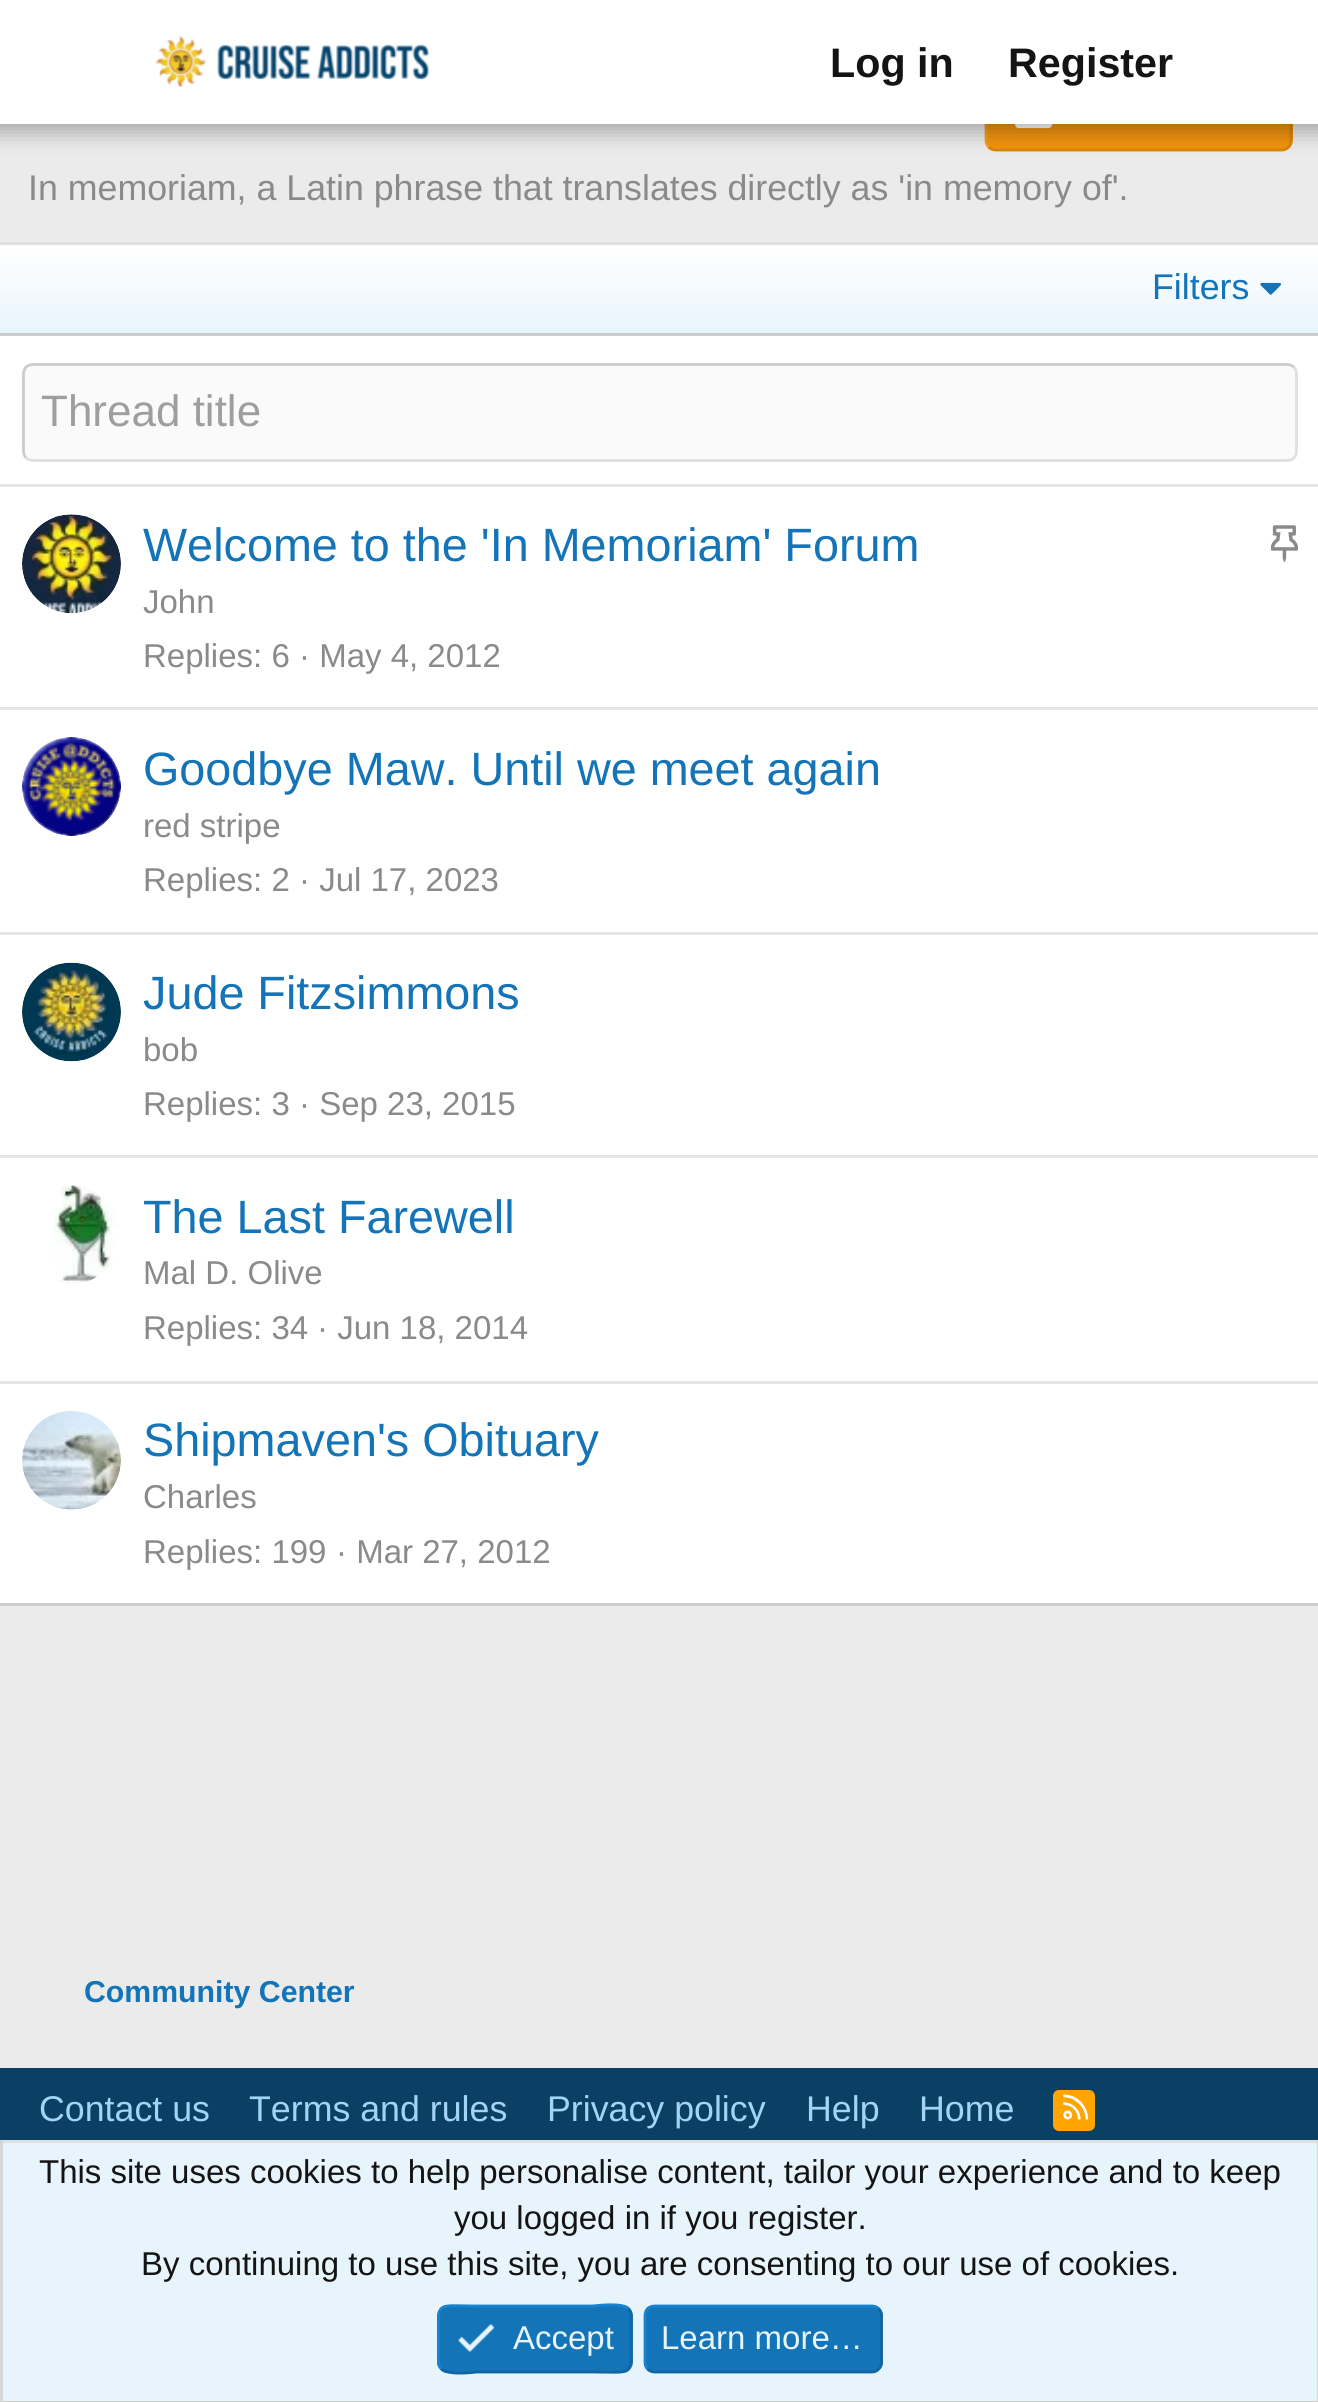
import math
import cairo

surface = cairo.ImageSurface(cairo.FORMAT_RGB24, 1318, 2402)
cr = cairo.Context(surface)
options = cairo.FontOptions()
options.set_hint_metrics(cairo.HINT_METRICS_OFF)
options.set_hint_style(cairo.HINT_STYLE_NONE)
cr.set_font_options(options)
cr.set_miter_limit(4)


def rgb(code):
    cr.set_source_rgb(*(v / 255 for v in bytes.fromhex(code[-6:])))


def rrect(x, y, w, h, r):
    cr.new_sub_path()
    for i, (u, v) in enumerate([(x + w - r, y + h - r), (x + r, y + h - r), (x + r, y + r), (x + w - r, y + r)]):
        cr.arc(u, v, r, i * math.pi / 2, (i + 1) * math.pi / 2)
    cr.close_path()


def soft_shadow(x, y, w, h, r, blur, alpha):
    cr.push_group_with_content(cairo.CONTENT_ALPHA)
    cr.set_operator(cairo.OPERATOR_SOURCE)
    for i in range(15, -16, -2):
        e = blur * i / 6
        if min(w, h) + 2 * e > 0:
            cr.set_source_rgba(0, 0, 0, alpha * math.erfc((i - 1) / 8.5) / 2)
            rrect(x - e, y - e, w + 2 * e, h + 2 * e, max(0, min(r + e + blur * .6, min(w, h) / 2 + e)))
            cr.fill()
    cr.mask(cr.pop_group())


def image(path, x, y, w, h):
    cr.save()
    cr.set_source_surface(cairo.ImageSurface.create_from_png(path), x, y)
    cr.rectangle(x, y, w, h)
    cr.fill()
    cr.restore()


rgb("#ebebeb")
cr.paint()
rgb("#f2930d")
rrect(985, 69, 308, 82, 11)
cr.fill()
cr.new_path()
cr.move_to(1288.5, 73)
cr.curve_to(1290, 74.5, 1291, 77, 1291, 80)
cr.line_to(1291, 140)
cr.curve_to(1291, 143, 1290, 145.5, 1288.5, 147)
cr.curve_to(1286.5, 149, 1284, 150, 1281.5, 150)
cr.line_to(995.5, 150)
cr.curve_to(993, 150, 990.5, 149, 988.5, 147)
rgb("#da840b")
cr.set_line_width(2.8)
cr.stroke()
cr.new_path()
cr.move_to(988.5, 147)
cr.curve_to(987, 145.5, 986, 143, 986, 140)
cr.line_to(986, 80)
cr.curve_to(986, 77, 987, 74.5, 988.5, 73)
cr.curve_to(990.5, 71, 993, 70, 995.5, 70)
cr.line_to(1281.5, 70)
cr.curve_to(1284, 70, 1286.5, 71, 1288.5, 73)
rgb("#f49d25")
cr.stroke()
image("img/2.png", 1015, 124, 38, 5)
rgb("#000000")
soft_shadow(-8, -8, 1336, 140, 0, 11, 0.3)
rgb("#ffffff")
cr.rectangle(0, 0, 1318, 124)
cr.fill()
image("img/1.png", 156, 36, 273, 52)
for x, y, w, h, color in [
    (0, 336, 1318, 1267, "#ffffff"),
    (0, 242, 1318, 3, "#e0e0e0"),
    (0, 1603, 1318, 3, "#cccccc"),
]:
    rgb(color)
    cr.rectangle(x, y, w, h)
    cr.fill()
gradient = cairo.LinearGradient(660, 333, 660, 245)
gradient.add_color_stop_rgba(0, 0.91, 0.957, 0.988, 1)
gradient.add_color_stop_rgba(1, 1, 1, 1, 1)
cr.set_source(gradient)
cr.rectangle(0, 245, 1318, 88)
cr.fill()
rgb("#cccccc")
cr.rectangle(0, 333, 1318, 3)
cr.fill()
image("img/3.png", 1260, 282, 21, 13)
rgb("#fafafa")
rrect(22, 363, 1276, 99, 11)
cr.fill()
cr.new_path()
cr.move_to(1294, 367)
cr.curve_to(1295.5, 369, 1296.5, 371.5, 1296.5, 374)
cr.line_to(1296.5, 451)
cr.curve_to(1296.5, 453.5, 1295.5, 456, 1294, 458)
cr.curve_to(1292, 459.5, 1289.5, 460.5, 1287, 460.5)
cr.line_to(33, 460.5)
cr.curve_to(30.5, 460.5, 28, 459.5, 26, 458)
rgb("#e0e0e0")
cr.stroke()
cr.new_path()
cr.move_to(26, 458)
cr.curve_to(24.5, 456, 23.5, 453.5, 23.5, 451)
cr.line_to(23.5, 374)
cr.curve_to(23.5, 371.5, 24.5, 369, 26, 367)
cr.curve_to(28, 365.5, 30.5, 364.5, 33, 364.5)
cr.line_to(1287, 364.5)
cr.curve_to(1289.5, 364.5, 1292, 365.5, 1294, 367)
rgb("#cccccc")
cr.stroke()
rgb("#e5e5e5")
cr.rectangle(0, 484, 1318, 3)
cr.fill()
image("img/4.png", 22, 514, 99, 99)
image("img/5.png", 1271, 525, 27, 38)
cr.rectangle(0, 707, 1318, 3)
cr.fill()
image("img/6.png", 22, 737, 99, 99)
cr.rectangle(0, 932, 1318, 3)
cr.fill()
image("img/7.png", 22, 962, 99, 100)
cr.rectangle(0, 1155, 1318, 3)
cr.fill()
image("img/8.png", 53, 1185, 67, 99)
cr.rectangle(0, 1381, 1318, 3)
cr.fill()
image("img/9.png", 22, 1411, 99, 99)
rgb("#0b4065")
cr.rectangle(0, 2068, 1318, 72)
cr.fill()
rgb("#ffa500")
rrect(1053, 2090, 42, 41, 6)
cr.fill()
image("img/10.png", 1063, 2094, 26, 26)
for x, y, w, h, color in [
    (3, 2143, 1314, 258, "#e8f4fc"),
    (0, 2140, 1318, 3, "#e0e0e0"),
    (1317, 2140, 1, 262, "#d6d6d6"),
    (0, 2401, 1318, 1, "#cccccc"),
    (0, 2140, 3, 262, "#d6d6d6"),
]:
    rgb(color)
    cr.rectangle(x, y, w, h)
    cr.fill()
rgb("#1474b8")
rrect(437, 2305, 196, 68, 11)
cr.fill()
cr.new_path()
cr.move_to(628.5, 2308.5)
cr.curve_to(632, 2312.5, 631, 2318.5, 631, 2323.5)
cr.line_to(631, 2339)
cr.curve_to(631, 2377.5, 634.5, 2372, 592.5, 2372)
cr.line_to(477, 2372)
cr.curve_to(476, 2372, 448.5, 2376, 441.5, 2369)
rgb("#1265a1")
cr.stroke()
cr.new_path()
cr.move_to(441.5, 2369)
cr.curve_to(437.5, 2365, 438.5, 2359.5, 438.5, 2354.5)
cr.line_to(438.5, 2339)
cr.curve_to(438.5, 2300, 435, 2306, 477, 2306)
cr.line_to(592.5, 2306)
cr.curve_to(594, 2306, 621.5, 2302, 628.5, 2308.5)
rgb("#1782cf")
cr.stroke()
image("img/11.png", 458, 2324, 37, 29)
rgb("#1474b8")
rrect(644, 2305, 239, 68, 11)
cr.fill()
cr.new_path()
cr.move_to(878.5, 2308.5)
cr.curve_to(880.5, 2310.5, 881.5, 2313, 881.5, 2315.5)
cr.line_to(881.5, 2362)
cr.curve_to(881.5, 2365, 880.5, 2367.5, 878.5, 2369)
cr.curve_to(877, 2371, 874.5, 2372, 872, 2372)
cr.line_to(654.5, 2372)
cr.curve_to(652, 2372, 649.5, 2371, 647.5, 2369)
rgb("#1265a1")
cr.stroke()
cr.new_path()
cr.move_to(647.5, 2369)
cr.curve_to(646, 2367.5, 645, 2365, 645, 2362)
cr.line_to(645, 2315.5)
cr.curve_to(645, 2313, 646, 2310.5, 647.5, 2308.5)
cr.curve_to(649.5, 2307, 652, 2306, 654.5, 2306)
cr.line_to(872, 2306)
cr.curve_to(874.5, 2306, 877, 2307, 878.5, 2308.5)
rgb("#1782cf")
cr.stroke()
cr.select_font_face("Liberation Sans", cairo.FONT_SLANT_NORMAL, cairo.FONT_WEIGHT_BOLD)
cr.set_font_size(41.25)
rgb("#141414")
cr.move_to(830, 77)
cr.show_text("Log in")
cr.move_to(1008, 77)
cr.show_text("Register")
cr.select_font_face("Liberation Sans")
cr.set_font_size(35.75)
rgb("#8a8a8a")
cr.move_to(28, 200)
cr.show_text("In memoriam, a Latin phrase that translates directly as 'in memory of'.")
rgb("#1474b8")
cr.move_to(1152, 299)
cr.show_text("Filters")
cr.set_font_size(44)
rgb("#9e9e9e")
cr.move_to(41, 426)
cr.show_text("Thread title")
cr.set_font_size(46.75)
rgb("#1474b8")
cr.move_to(143, 561)
cr.show_text("Welcome to the 'In Memoriam' Forum")
cr.set_font_size(33)
rgb("#8a8a8a")
for x, y, s in [
    (143, 613, "John"),
    (143, 667, "Replies: 6"),
    (299, 667, "· May 4, 2012"),
]:
    cr.move_to(x, y)
    cr.show_text(s)
cr.set_font_size(46.75)
rgb("#1474b8")
cr.move_to(143, 785)
cr.show_text("Goodbye Maw. Until we meet again")
cr.set_font_size(33)
rgb("#8a8a8a")
for x, y, s in [
    (143, 837, "red stripe"),
    (143, 891, "Replies: 2"),
    (299, 891, "· Jul 17, 2023"),
]:
    cr.move_to(x, y)
    cr.show_text(s)
cr.set_font_size(46.75)
rgb("#1474b8")
cr.move_to(143, 1009)
cr.show_text("Jude Fitzsimmons")
cr.set_font_size(33)
rgb("#8a8a8a")
for x, y, s in [
    (143, 1061, "bob"),
    (143, 1115, "Replies: 3"),
    (299, 1115, "· Sep 23, 2015"),
]:
    cr.move_to(x, y)
    cr.show_text(s)
cr.set_font_size(46.75)
rgb("#1474b8")
cr.move_to(143, 1233)
cr.show_text("The Last Farewell")
cr.set_font_size(33)
rgb("#8a8a8a")
for x, y, s in [
    (143, 1284, "Mal D. Olive"),
    (143, 1339, "Replies: 34"),
    (317, 1339, "· Jun 18, 2014"),
]:
    cr.move_to(x, y)
    cr.show_text(s)
cr.set_font_size(46.75)
rgb("#1474b8")
cr.move_to(143, 1456)
cr.show_text("Shipmaven's Obituary")
cr.set_font_size(33)
rgb("#8a8a8a")
for x, y, s in [
    (143, 1508, "Charles"),
    (143, 1563, "Replies: 199"),
    (336, 1563, "· Mar 27, 2012"),
]:
    cr.move_to(x, y)
    cr.show_text(s)
cr.select_font_face("Liberation Sans", cairo.FONT_SLANT_NORMAL, cairo.FONT_WEIGHT_BOLD)
cr.set_font_size(30.25)
rgb("#1474b8")
cr.move_to(84, 2002)
cr.show_text("Community Center")
cr.select_font_face("Liberation Sans")
cr.set_font_size(35.75)
rgb("#a3d4f5")
for x, y, s in [
    (39, 2121, "Contact us"),
    (249, 2121, "Terms and rules"),
    (547, 2121, "Privacy policy"),
    (806, 2121, "Help"),
    (919, 2121, "Home"),
]:
    cr.move_to(x, y)
    cr.show_text(s)
cr.set_font_size(33)
rgb("#141414")
for x, y, s in [
    (39, 2183, "This site uses cookies to help personalise content, tailor your experience and to keep"),
    (454, 2229, "you logged in if you register."),
    (141, 2275, "By continuing to use this site, you are consenting to our use of cookies."),
]:
    cr.move_to(x, y)
    cr.show_text(s)
rgb("#e8f4fc")
cr.move_to(513, 2349)
cr.show_text("Accept")
cr.move_to(661, 2349)
cr.show_text("Learn more…")
surface.write_to_png("page.png")
